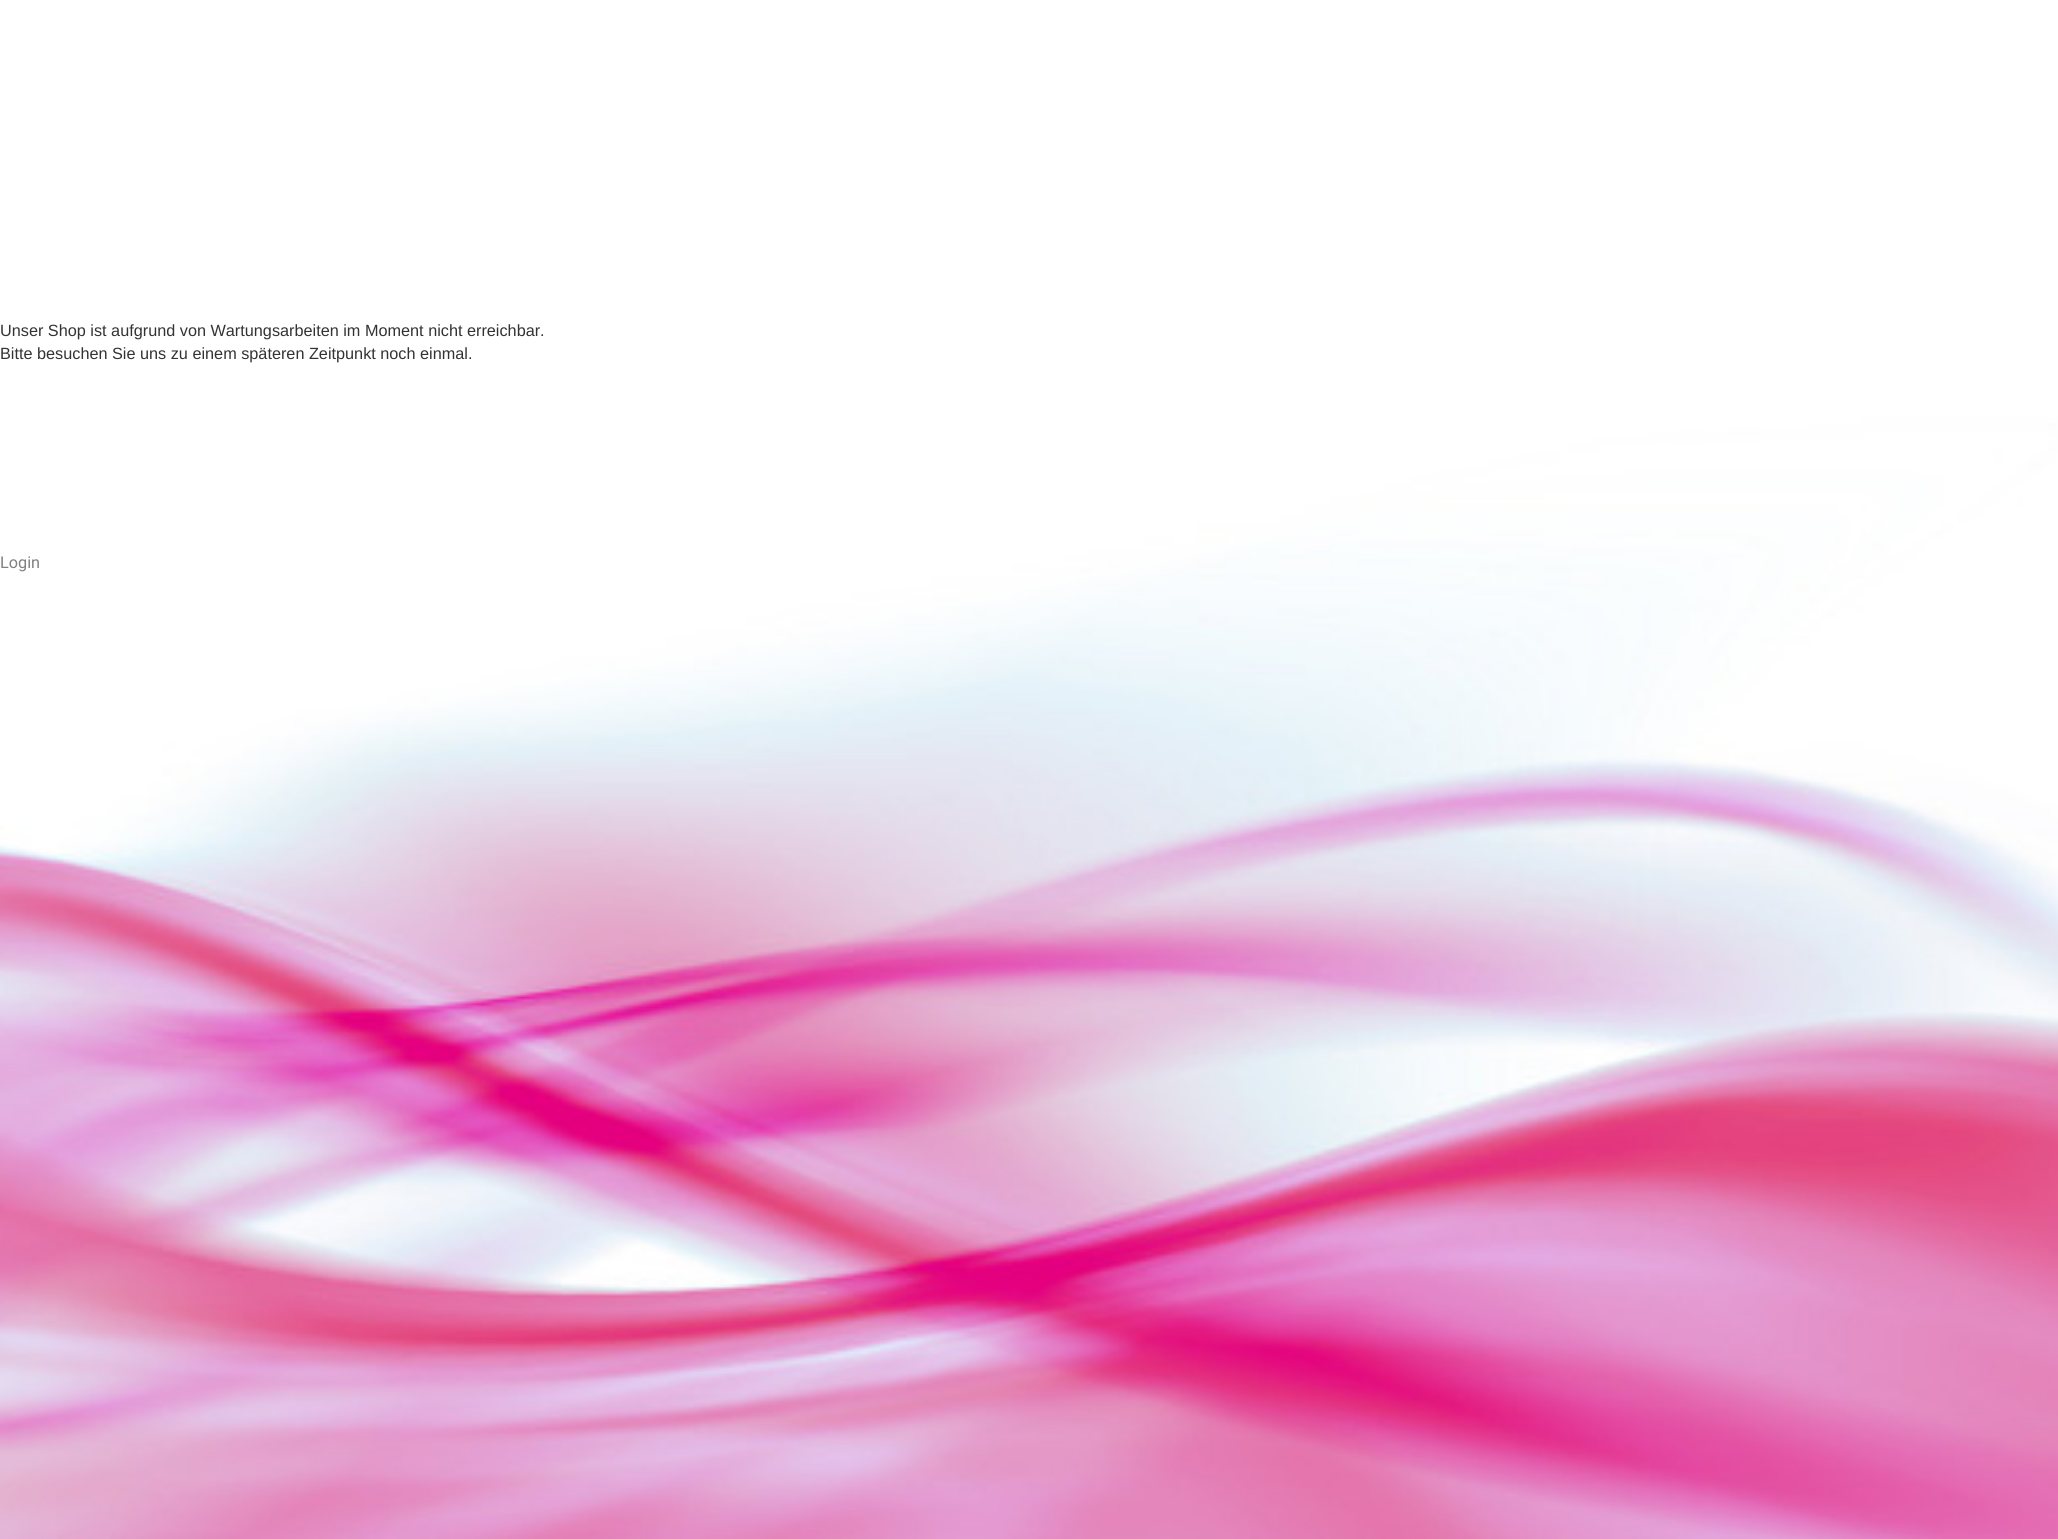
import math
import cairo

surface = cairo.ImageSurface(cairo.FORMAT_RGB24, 2058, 1539)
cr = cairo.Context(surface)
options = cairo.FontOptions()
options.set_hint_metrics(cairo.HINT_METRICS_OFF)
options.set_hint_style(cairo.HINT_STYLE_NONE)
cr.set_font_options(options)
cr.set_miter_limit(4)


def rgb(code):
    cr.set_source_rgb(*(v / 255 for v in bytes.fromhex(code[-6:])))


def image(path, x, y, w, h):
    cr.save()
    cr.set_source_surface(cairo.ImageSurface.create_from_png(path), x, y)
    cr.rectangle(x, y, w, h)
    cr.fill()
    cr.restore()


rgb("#ffffff")
cr.paint()
image("img/1.png", 0, 0, 2058, 1539)
cr.select_font_face("Liberation Sans")
cr.set_font_size(16.25)
rgb("#333333")
cr.move_to(0, 336)
cr.show_text("Unser Shop ist aufgrund von Wartungsarbeiten im Moment nicht erreichbar.")
cr.move_to(0, 359)
cr.show_text("Bitte besuchen Sie uns zu einem späteren Zeitpunkt noch einmal.")
cr.select_font_face("Roboto")
rgb("#808080")
cr.move_to(0, 568)
cr.show_text("Login")
surface.write_to_png("page.png")
